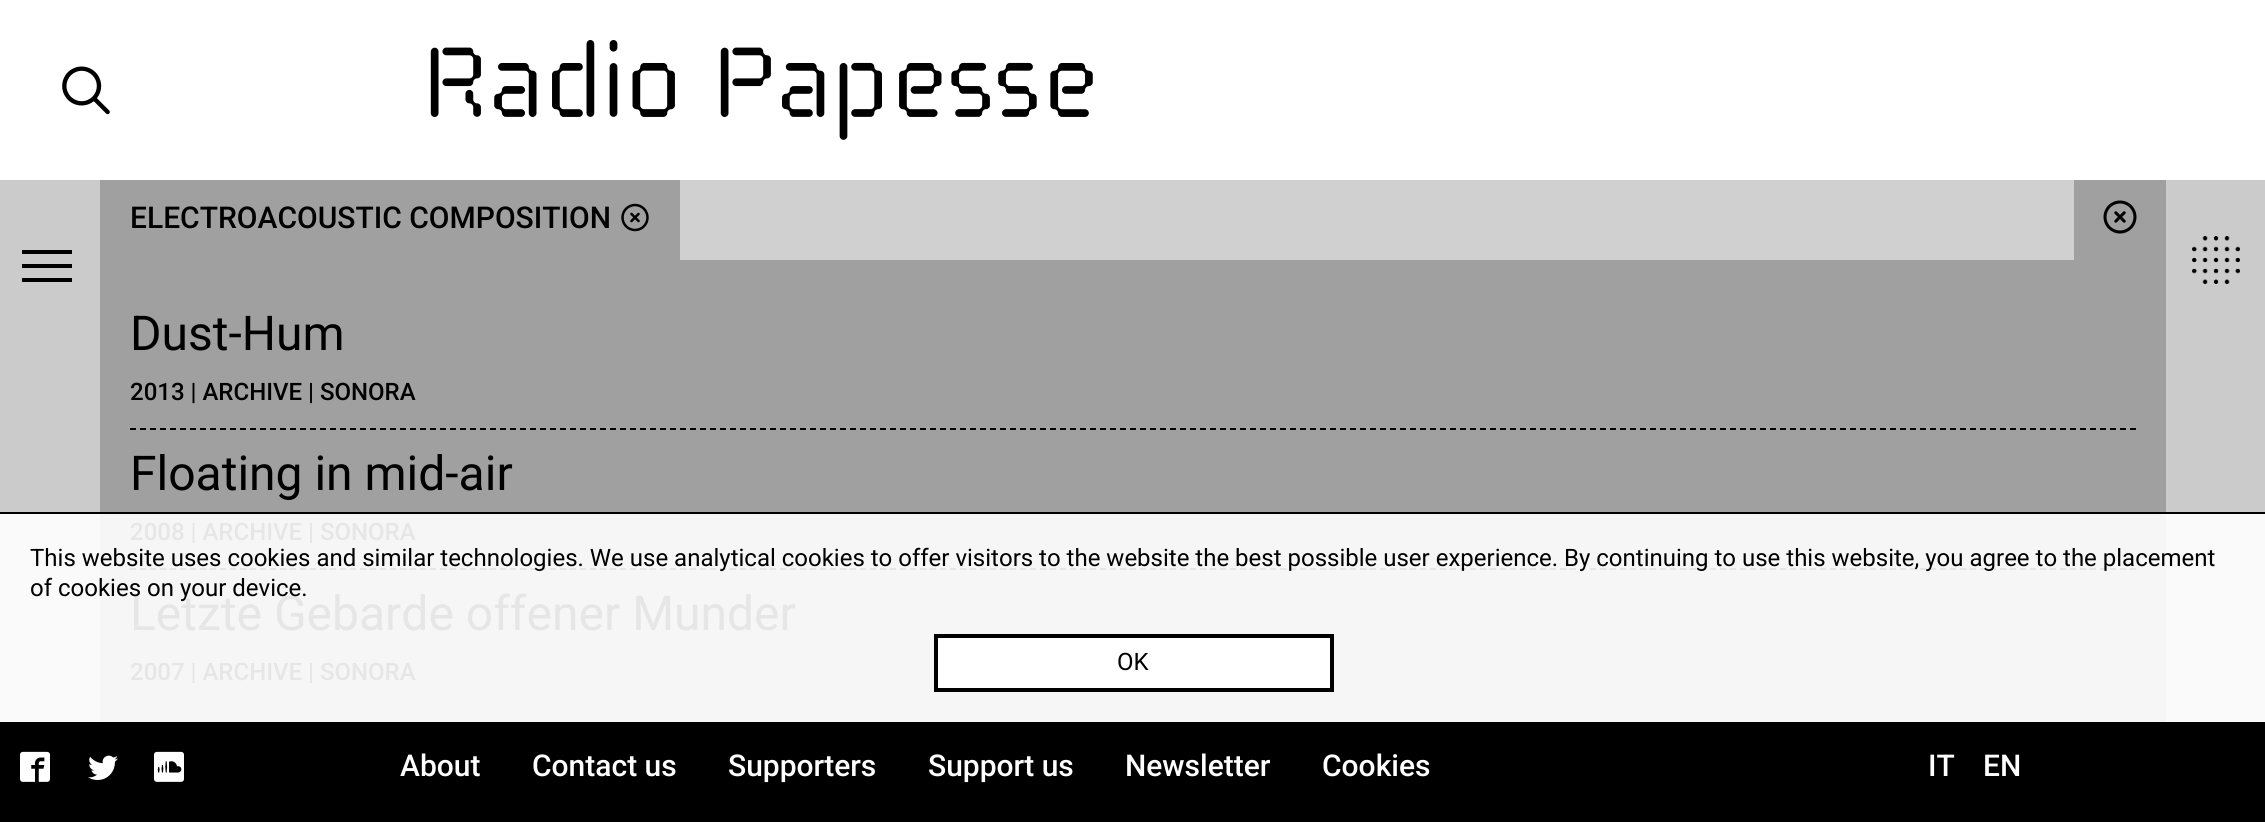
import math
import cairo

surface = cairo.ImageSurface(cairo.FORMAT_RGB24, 2265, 822)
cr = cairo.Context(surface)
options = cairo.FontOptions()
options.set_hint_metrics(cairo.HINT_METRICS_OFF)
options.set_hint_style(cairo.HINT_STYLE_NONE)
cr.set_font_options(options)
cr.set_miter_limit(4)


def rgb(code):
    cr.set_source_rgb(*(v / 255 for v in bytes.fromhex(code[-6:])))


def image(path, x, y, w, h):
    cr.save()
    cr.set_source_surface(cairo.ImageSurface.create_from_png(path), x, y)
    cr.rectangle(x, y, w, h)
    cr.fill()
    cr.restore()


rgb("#a0a0a0")
cr.paint()
rgb("#ffffff")
cr.rectangle(0, 0, 2265, 180)
cr.fill()
image("img/1.png", 62, 66, 48, 49)
image("img/2.png", 430, 40, 663, 100)
for x, y, w, h, color in [
    (0, 180, 100, 332, "#cbcbcb"),
    (0, 514, 100, 208, "#fafafa"),
    (22, 250, 50, 4, "#000000"),
    (22, 264, 50, 4, "#000000"),
    (22, 278, 50, 4, "#000000"),
    (100, 514, 2066, 208, "#f6f6f6"),
    (680, 180, 1394, 80, "#d0d0d0"),
]:
    rgb(color)
    cr.rectangle(x, y, w, h)
    cr.fill()
image("img/3.png", 621, 203, 28, 29)
image("img/4.png", 2103, 200, 34, 34)
cr.new_path()
cr.move_to(130, 429)
cr.line_to(2136, 429)
rgb("#000000")
cr.set_dash([6, 4])
cr.stroke()
cr.new_path()
cr.move_to(130, 569)
cr.line_to(2136, 569)
rgb("#e6e6e6")
cr.stroke()
rgb("#cbcbcb")
cr.rectangle(2166, 180, 99, 332)
cr.fill()
rgb("#fafafa")
cr.rectangle(2166, 514, 99, 208)
cr.fill()
image("img/5.png", 2192, 236, 48, 48)
rgb("#000000")
cr.rectangle(0, 722, 2265, 100)
cr.fill()
image("img/6.png", 20, 751, 30, 31)
image("img/7.png", 88, 755, 30, 25)
image("img/8.png", 154, 751, 30, 31)
cr.rectangle(0, 512, 2265, 2)
cr.fill()
rgb("#ffffff")
cr.rectangle(936, 636, 396, 54)
cr.fill_preserve()
rgb("#000000")
cr.set_line_width(4)
cr.set_dash([])
cr.stroke()
cr.select_font_face("Roboto Medium")
cr.set_font_size(30)
cr.move_to(130, 228)
cr.show_text("ELECTROACOUSTIC COMPOSITION")
cr.select_font_face("Roboto")
cr.set_font_size(48)
cr.move_to(130, 350)
cr.show_text("Dust-Hum")
cr.select_font_face("Roboto Medium")
cr.set_font_size(24)
cr.move_to(130, 400)
cr.show_text("2013 | ARCHIVE | SONORA")
cr.select_font_face("Roboto")
cr.set_font_size(48)
cr.move_to(130, 490)
cr.show_text("Floating in mid-air")
cr.select_font_face("Roboto Medium")
cr.set_font_size(24)
rgb("#e6e6e6")
cr.move_to(130, 540)
cr.show_text("2008 | ARCHIVE | SONORA")
cr.select_font_face("Roboto")
cr.set_font_size(48)
cr.move_to(130, 630)
cr.show_text("Letzte Gebarde offener Munder")
cr.select_font_face("Roboto Medium")
cr.set_font_size(24)
cr.move_to(130, 680)
cr.show_text("2007 | ARCHIVE | SONORA")
cr.set_font_size(30)
rgb("#ffffff")
for x, y, s in [
    (400, 776, "About"),
    (532, 776, "Contact us"),
    (728, 776, "Supporters"),
    (928, 776, "Support us"),
    (1125, 776, "Newsletter"),
    (1322, 776, "Cookies"),
    (1928, 776, "IT"),
    (1983, 776, "EN"),
]:
    cr.move_to(x, y)
    cr.show_text(s)
cr.select_font_face("Roboto")
cr.set_font_size(24)
rgb("#000000")
for x, y, s in [
    (30, 566, "This website uses cookies and similar technologies. We use analytical cookies to offer visitors to the website the best possible user experience. By continuing to use this website, you agree to the placement"),
    (30, 596, "of cookies on your device."),
    (1117, 670, "OK"),
]:
    cr.move_to(x, y)
    cr.show_text(s)
surface.write_to_png("page.png")
